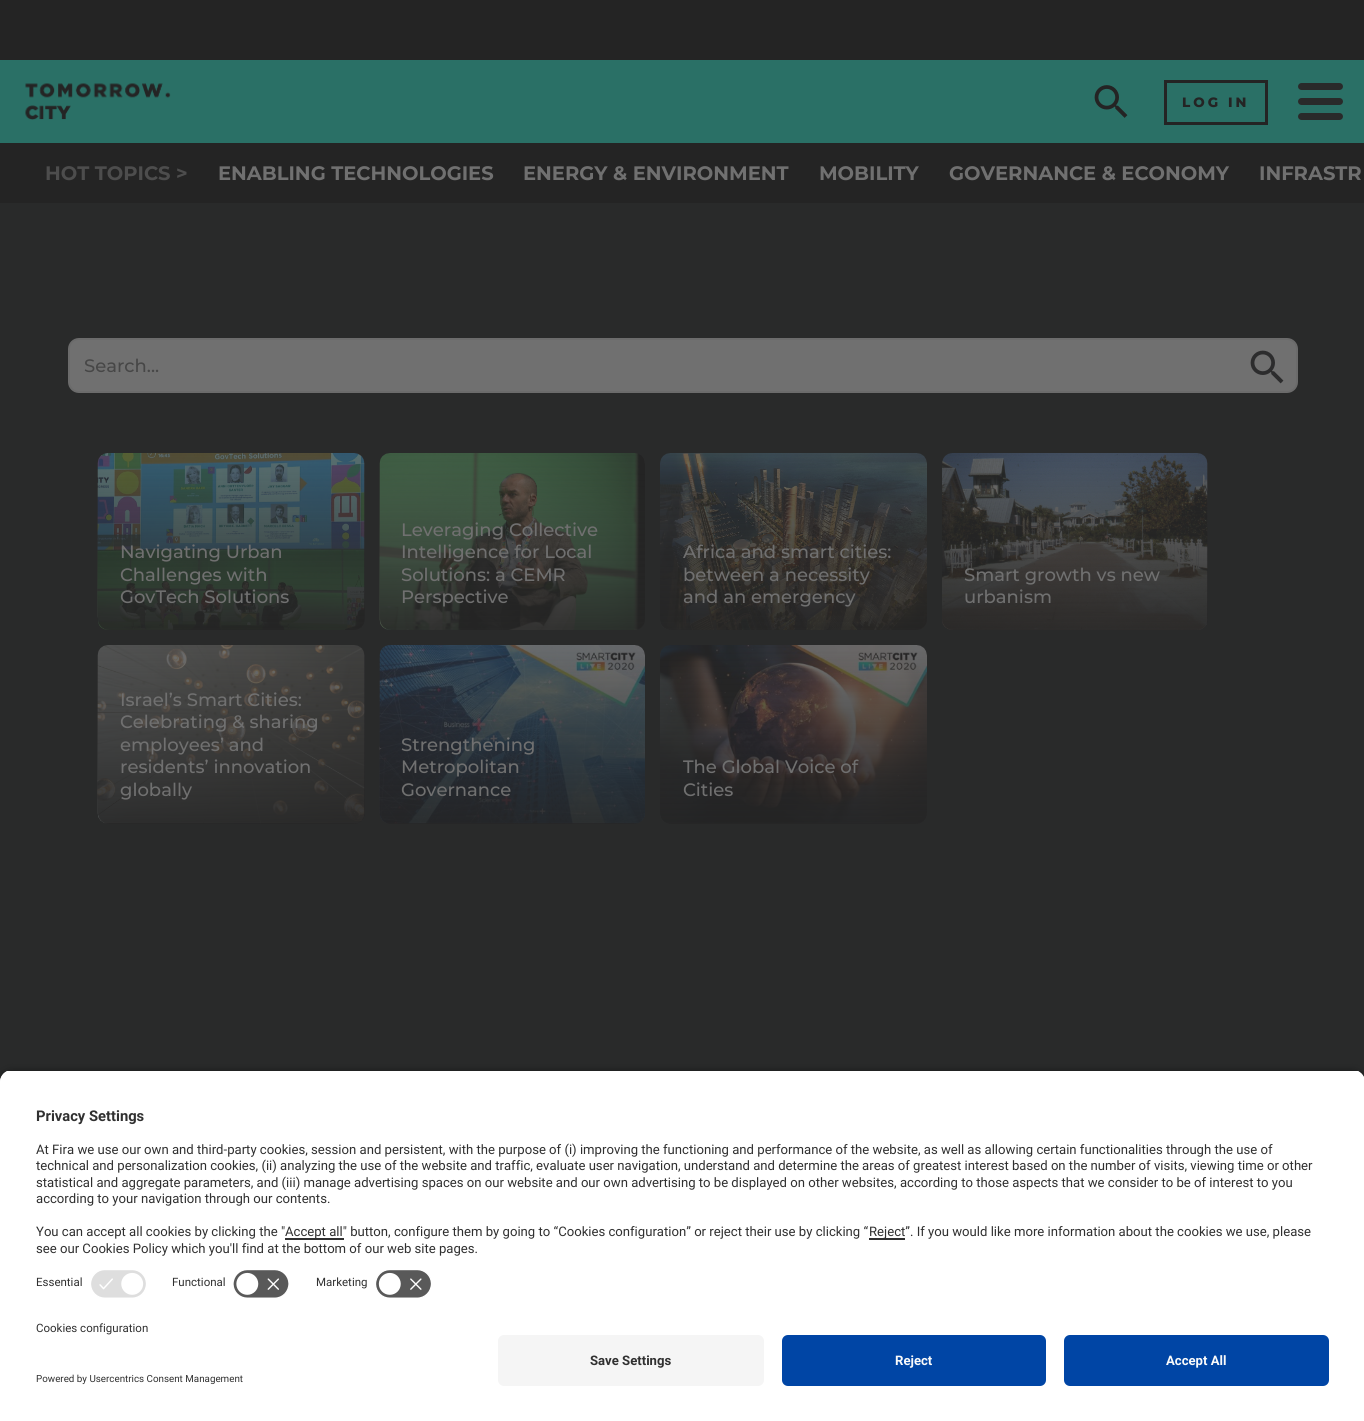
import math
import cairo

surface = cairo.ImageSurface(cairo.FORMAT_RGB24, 1364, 1421)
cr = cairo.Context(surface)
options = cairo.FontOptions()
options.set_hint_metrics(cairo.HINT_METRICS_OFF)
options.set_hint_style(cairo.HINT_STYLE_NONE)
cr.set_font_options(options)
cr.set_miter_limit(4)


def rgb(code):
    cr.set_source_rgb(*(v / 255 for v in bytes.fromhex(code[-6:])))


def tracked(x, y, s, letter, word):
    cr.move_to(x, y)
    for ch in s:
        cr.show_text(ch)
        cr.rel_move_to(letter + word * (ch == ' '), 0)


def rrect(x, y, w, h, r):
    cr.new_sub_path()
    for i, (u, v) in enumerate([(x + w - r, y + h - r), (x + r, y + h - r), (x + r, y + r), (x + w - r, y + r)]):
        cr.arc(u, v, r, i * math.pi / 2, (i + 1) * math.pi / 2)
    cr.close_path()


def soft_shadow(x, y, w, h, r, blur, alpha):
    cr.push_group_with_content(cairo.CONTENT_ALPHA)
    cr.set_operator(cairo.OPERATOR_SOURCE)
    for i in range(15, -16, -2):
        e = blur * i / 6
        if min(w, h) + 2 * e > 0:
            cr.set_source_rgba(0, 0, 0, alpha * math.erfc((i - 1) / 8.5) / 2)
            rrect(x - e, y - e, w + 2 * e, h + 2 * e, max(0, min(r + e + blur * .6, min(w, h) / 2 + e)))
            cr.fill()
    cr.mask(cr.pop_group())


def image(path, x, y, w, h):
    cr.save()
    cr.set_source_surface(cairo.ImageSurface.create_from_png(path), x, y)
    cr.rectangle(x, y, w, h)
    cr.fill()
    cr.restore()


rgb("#292a2a")
cr.paint()
rgb("#2a7066")
cr.rectangle(0, 60, 1364, 83)
cr.fill()
rgb("#242424")
cr.rectangle(0, 0, 1364, 60)
cr.fill()
image("img/1.png", 25, 83, 146, 37)
image("img/2.png", 1094, 85, 34, 33)
cr.rectangle(1165.5, 81.5, 101, 42)
cr.set_line_width(3)
cr.stroke()
rgb("#292a2a")
rrect(1298, 83, 45, 7, 3.5)
cr.fill()
rrect(1298, 98, 45, 7, 3.5)
cr.fill()
rrect(1298, 113, 45, 7, 3.5)
cr.fill()
rgb("#242424")
cr.rectangle(0, 143, 1364, 60)
cr.fill()
rgb("#707070")
rrect(69, 339, 1228, 53, 10)
cr.fill_preserve()
rgb("#6b6b6b")
cr.set_line_width(2)
cr.stroke()
image("img/3.png", 1250, 350, 34, 34)
rgb("#2c2c2d")
rrect(98, 453, 267, 177, 11)
cr.fill()
image("img/4.png", 97, 453, 268, 177)
gradient = cairo.LinearGradient(231, 630, 231, 453)
gradient.add_color_stop_rgba(0, 0.141, 0.141, 0.141, 0.8)
gradient.add_color_stop_rgba(1, 0.141, 0.141, 0.141, 0)
cr.set_source(gradient)
rrect(98, 453, 267, 177, 11)
cr.fill()
rgb("#2c2c2d")
rrect(380, 453, 265, 177, 11)
cr.fill()
image("img/5.png", 379, 453, 266, 177)
gradient = cairo.LinearGradient(512, 630, 512, 453)
gradient.add_color_stop_rgba(0, 0.141, 0.141, 0.141, 0.8)
gradient.add_color_stop_rgba(1, 0.141, 0.141, 0.141, 0)
cr.set_source(gradient)
rrect(380, 453, 265, 177, 11)
cr.fill()
rgb("#2c2c2d")
rrect(660, 453, 267, 177, 11)
cr.fill()
image("img/6.png", 660, 453, 267, 177)
gradient = cairo.LinearGradient(794, 630, 794, 453)
gradient.add_color_stop_rgba(0, 0.141, 0.141, 0.141, 0.8)
gradient.add_color_stop_rgba(1, 0.141, 0.141, 0.141, 0)
cr.set_source(gradient)
rrect(660, 453, 267, 177, 11)
cr.fill()
rgb("#2c2c2d")
rrect(942, 453, 266, 177, 11)
cr.fill()
image("img/7.png", 942, 453, 266, 177)
gradient = cairo.LinearGradient(1075, 630, 1075, 453)
gradient.add_color_stop_rgba(0, 0.141, 0.141, 0.141, 0.8)
gradient.add_color_stop_rgba(1, 0.141, 0.141, 0.141, 0)
cr.set_source(gradient)
rrect(942, 453, 266, 177, 11)
cr.fill()
rgb("#2c2c2d")
rrect(98, 645, 267, 179, 11)
cr.fill()
image("img/8.png", 97, 645, 268, 179)
gradient = cairo.LinearGradient(231, 824, 231, 645)
gradient.add_color_stop_rgba(0, 0.141, 0.141, 0.141, 0.8)
gradient.add_color_stop_rgba(1, 0.141, 0.141, 0.141, 0)
cr.set_source(gradient)
rrect(98, 645, 267, 179, 11)
cr.fill()
rgb("#2c2c2d")
rrect(380, 645, 265, 179, 11)
cr.fill()
image("img/9.png", 379, 645, 266, 179)
gradient = cairo.LinearGradient(512, 824, 512, 645)
gradient.add_color_stop_rgba(0, 0.141, 0.141, 0.141, 0.8)
gradient.add_color_stop_rgba(1, 0.141, 0.141, 0.141, 0)
cr.set_source(gradient)
rrect(380, 645, 265, 179, 11)
cr.fill()
rgb("#2c2c2d")
rrect(660, 645, 267, 179, 11)
cr.fill()
image("img/10.png", 660, 645, 267, 179)
gradient = cairo.LinearGradient(794, 824, 794, 645)
gradient.add_color_stop_rgba(0, 0.141, 0.141, 0.141, 0.8)
gradient.add_color_stop_rgba(1, 0.141, 0.141, 0.141, 0)
cr.set_source(gradient)
rrect(660, 645, 267, 179, 11)
cr.fill()
rgb("#000000")
soft_shadow(0, 1074, 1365, 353, 12, 5, 0.8)
cr.save()
cr.new_path()
cr.move_to(12, 1070)
cr.line_to(1353, 1070)
cr.curve_to(1359.5, 1070, 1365, 1075.5, 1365, 1082)
cr.line_to(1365, 1323)
cr.line_to(0, 1323)
cr.line_to(0, 1082)
cr.curve_to(0, 1075.5, 5.5, 1070, 12, 1070)
cr.close_path()
cr.clip()
rgb("#ffffff")
cr.rectangle(0, 1071, 1364, 252)
cr.fill()
cr.rectangle(0, 1071, 1364, 192)
cr.fill()
cr.restore()
rgb("#303030")
cr.rectangle(285, 1238, 59, 2)
cr.fill()
cr.rectangle(869, 1238, 36, 2)
cr.fill()
image("img/11.png", 91, 1270, 55, 28)
image("img/12.png", 233, 1270, 56, 28)
image("img/13.png", 376, 1270, 55, 28)
rgb("#ffffff")
cr.rectangle(0, 1323, 1364, 98)
cr.fill()
rgb("#f5f5f5")
rrect(498, 1335, 266, 51, 6)
cr.fill()
rgb("#0045a5")
rrect(782, 1335, 264, 51, 6)
cr.fill()
rrect(1064, 1335, 265, 51, 6)
cr.fill()
cr.select_font_face("Montserrat ExtraBold")
cr.set_font_size(13.5)
rgb("#242424")
tracked(1182, 107, "LOG IN", 3, 0)
cr.select_font_face("Montserrat", cairo.FONT_SLANT_NORMAL, cairo.FONT_WEIGHT_BOLD)
cr.set_font_size(19.5)
rgb("#4d4d4d")
cr.move_to(45, 180)
cr.show_text("HOT TOPICS >")
rgb("#707070")
for x, y, s in [
    (218, 180, "ENABLING TECHNOLOGIES"),
    (523, 180, "ENERGY & ENVIRONMENT"),
    (819, 180, "MOBILITY"),
    (949, 180, "GOVERNANCE & ECONOMY"),
    (1259, 180, "INFRASTR"),
]:
    cr.move_to(x, y)
    cr.show_text(s)
cr.select_font_face("Montserrat Medium")
cr.set_font_size(18)
rgb("#474747")
cr.move_to(84, 372)
cr.show_text("Search...")
rgb("#707070")
for x, y, s in [
    (120, 558, "Navigating Urban"),
    (120, 581, "Challenges with"),
    (120, 603, "GovTech Solutions"),
    (401, 536, "Leveraging Collective"),
    (401, 558, "Intelligence for Local"),
    (401, 581, "Solutions: a CEMR"),
    (401, 603, "Perspective"),
    (683, 558, "Africa and smart cities:"),
    (683, 581, "between a necessity"),
    (683, 603, "and an emergency"),
    (964, 581, "Smart growth vs new"),
    (964, 603, "urbanism"),
    (120, 706, "Israel’s Smart Cities:"),
    (120, 728, "Celebrating & sharing"),
    (120, 751, "employees’ and"),
    (120, 773, "residents’ innovation"),
    (120, 796, "globally"),
    (401, 751, "Strengthening"),
    (401, 773, "Metropolitan"),
    (401, 796, "Governance"),
    (683, 773, "The Global Voice of"),
    (683, 796, "Cities"),
]:
    cr.move_to(x, y)
    cr.show_text(s)
cr.select_font_face("Roboto", cairo.FONT_SLANT_NORMAL, cairo.FONT_WEIGHT_BOLD)
cr.set_font_size(14.75)
rgb("#303030")
cr.move_to(36, 1121)
cr.show_text("Privacy Settings")
cr.select_font_face("Roboto")
cr.set_font_size(13.12)
for x, y, s in [
    (36, 1154, "At Fira we use our own and third-party cookies, session and persistent, with the purpose of (i) improving the functioning and performance of the website, as well as allowing certain functionalities through the use of"),
    (36, 1170, "technical and personalization cookies, (ii) analyzing the use of the website and traffic, evaluate user navigation, understand and determine the areas of greatest interest based on the number of visits, viewing time or other"),
    (36, 1187, "statistical and aggregate parameters, and (iii) manage advertising spaces on our website and our own advertising to be displayed on other websites, according to those aspects that we consider to be of interest to you"),
    (36, 1203, "according to your navigation through our contents."),
    (36, 1236, "You can accept all cookies by clicking the \""),
    (285, 1236, "Accept all\" button, configure them by going to “Cookies configuration” or reject their use by clicking “"),
    (869, 1236, "Reject”. If you would like more information about the cookies we use, please"),
    (36, 1253, "see our Cookies Policy which you'll find at the bottom of our web site pages."),
]:
    cr.move_to(x, y)
    cr.show_text(s)
cr.set_font_size(11.5)
for x, y, s in [
    (36, 1286, "Essential"),
    (172, 1286, "Functional"),
    (316, 1286, "Marketing"),
    (36, 1332, "Cookies configuration"),
]:
    cr.move_to(x, y)
    cr.show_text(s)
cr.set_font_size(9.8)
cr.move_to(36, 1382)
cr.show_text("Powered by Usercentrics Consent Management")
cr.select_font_face("Roboto", cairo.FONT_SLANT_NORMAL, cairo.FONT_WEIGHT_BOLD)
cr.set_font_size(13.12)
cr.move_to(590, 1365)
cr.show_text("Save Settings")
rgb("#fafafa")
cr.move_to(895, 1365)
cr.show_text("Reject")
cr.move_to(1166, 1365)
cr.show_text("Accept All")
surface.write_to_png("page.png")
